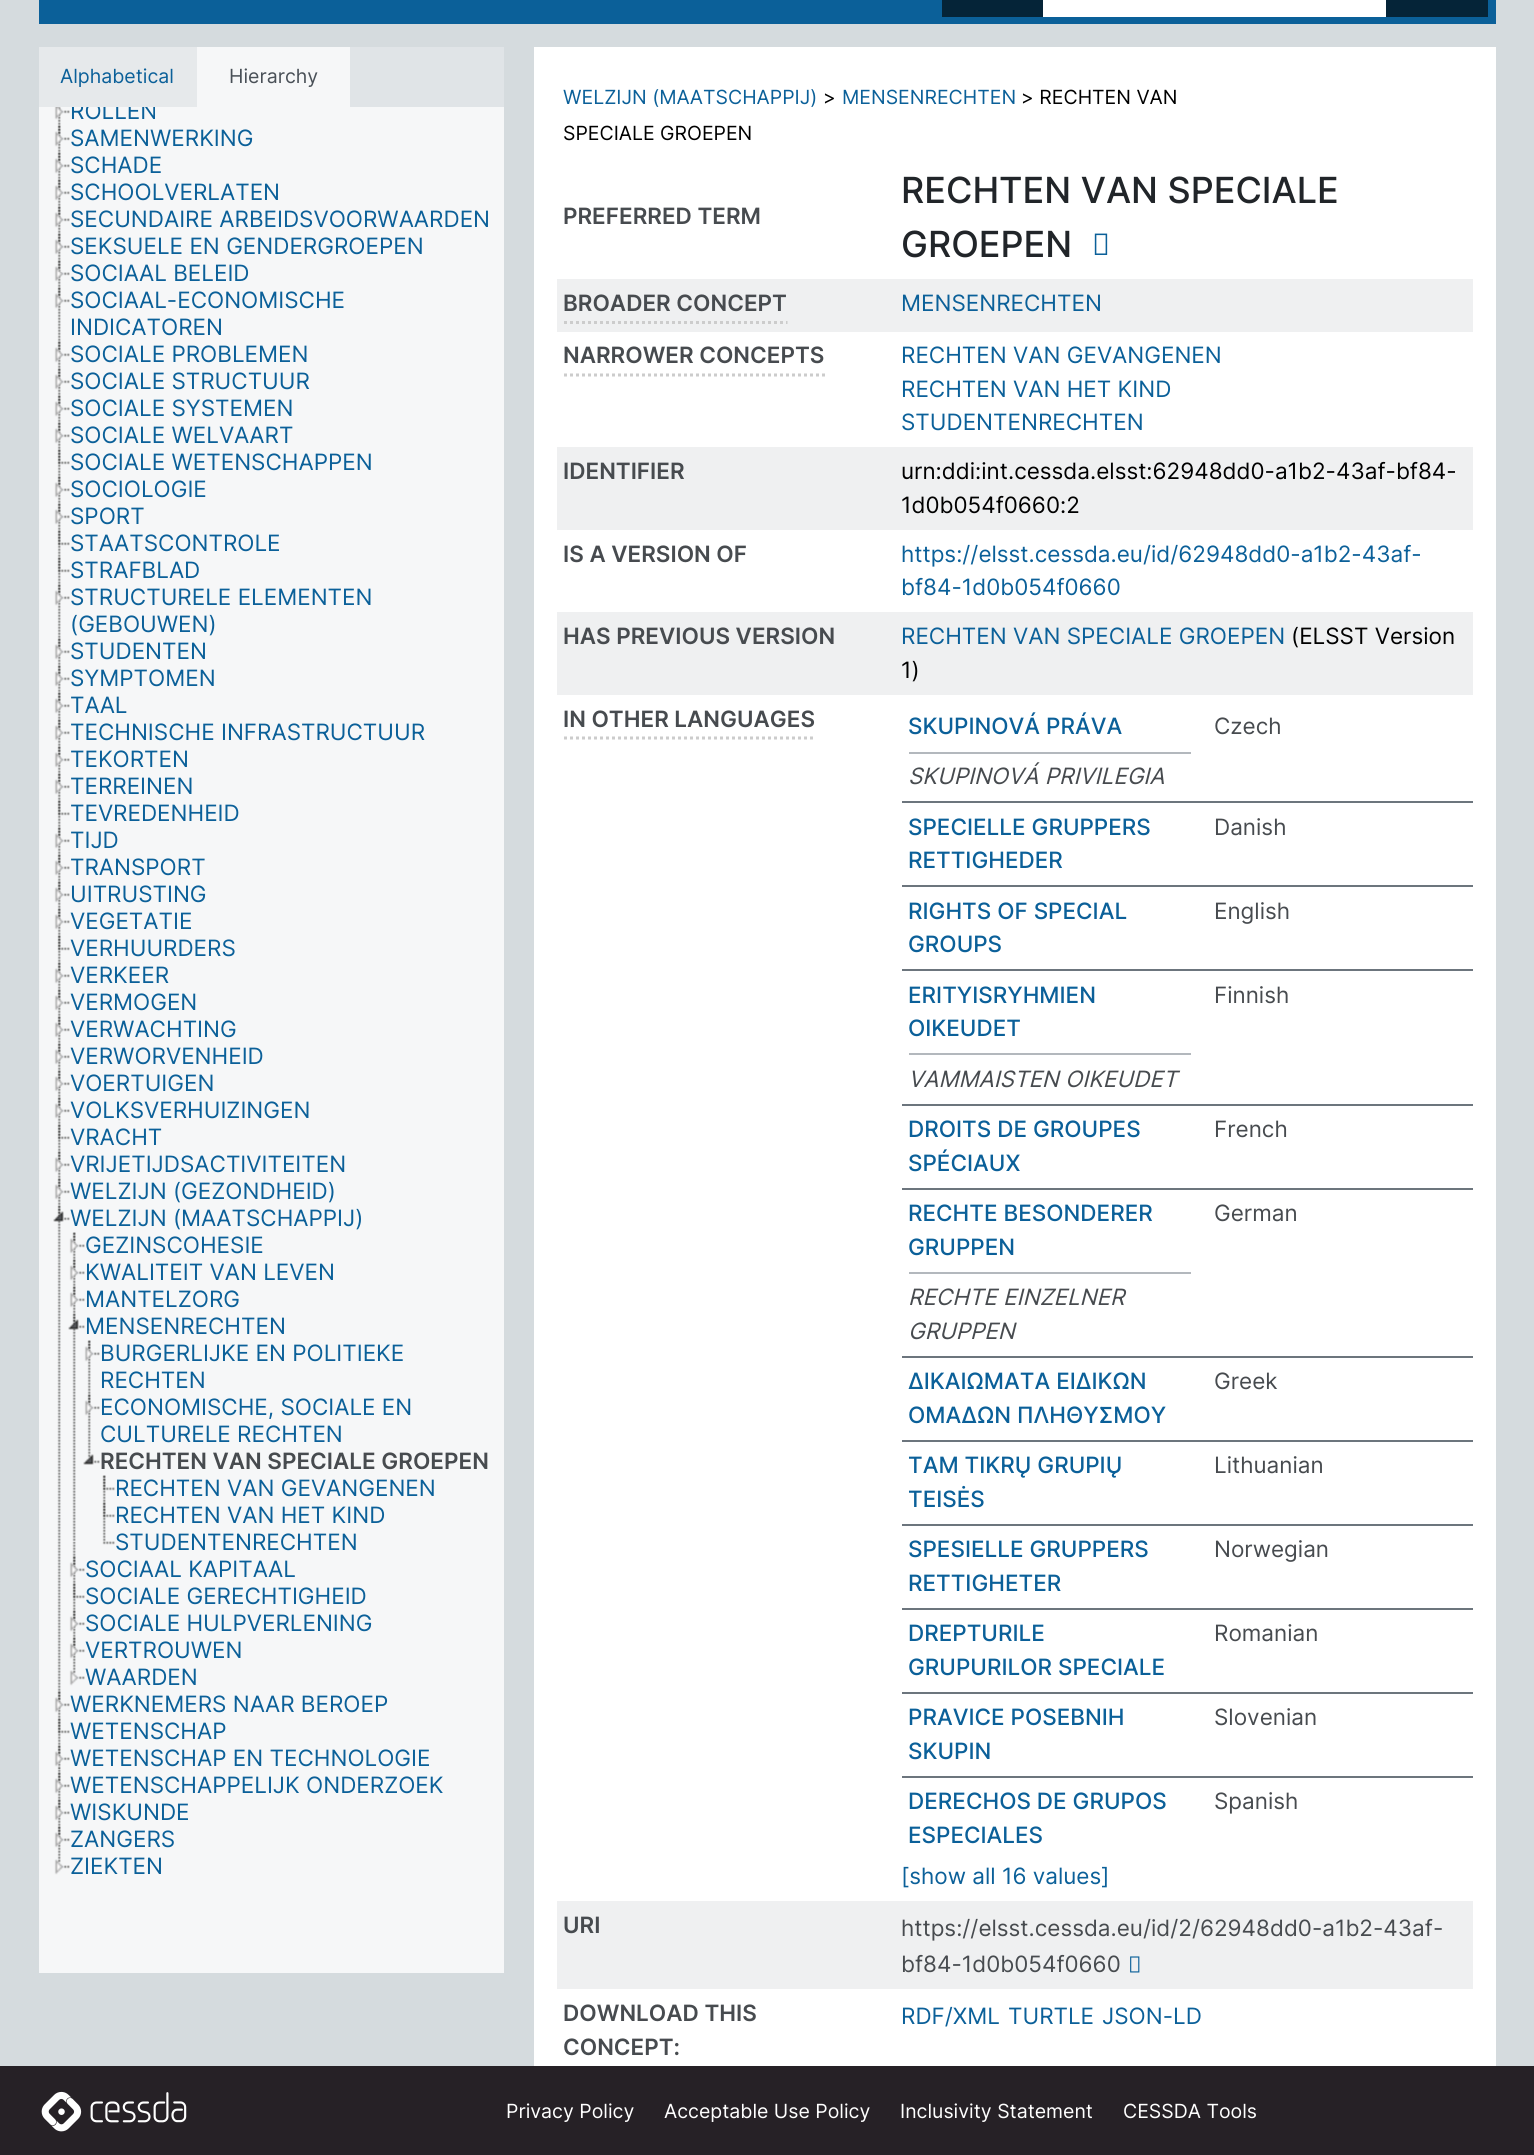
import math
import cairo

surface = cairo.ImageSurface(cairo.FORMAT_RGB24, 1534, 2155)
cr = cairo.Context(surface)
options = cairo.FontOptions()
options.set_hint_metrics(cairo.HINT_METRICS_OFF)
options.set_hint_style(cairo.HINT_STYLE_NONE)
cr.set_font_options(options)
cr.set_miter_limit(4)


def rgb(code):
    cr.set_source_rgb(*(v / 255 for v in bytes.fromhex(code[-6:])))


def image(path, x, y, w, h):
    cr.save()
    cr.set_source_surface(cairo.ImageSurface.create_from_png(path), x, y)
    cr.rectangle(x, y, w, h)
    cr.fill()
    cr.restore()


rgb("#d5dbde")
cr.paint()
for x, y, w, h, color in [
    (39, 0, 1457, 24, "#0b6099"),
    (942, 0, 101, 17, "#052438"),
    (1043, 0, 343, 17, "#ffffff"),
    (1386, 0, 102, 17, "#052438"),
    (350, 47, 154, 60, "#e0e4e7"),
    (39, 47, 158, 60, "#e6e9eb"),
    (197, 47, 153, 60, "#f6f7f8"),
    (39, 107, 465, 1866, "#f6f7f8"),
]:
    rgb(color)
    cr.rectangle(x, y, w, h)
    cr.fill()
image("img/1.png", 57, 107, 4, 19)
image("img/2.png", 54, 107, 16, 13)
image("img/3.png", 57, 125, 4, 28)
image("img/4.png", 54, 125, 16, 22)
image("img/3.png", 57, 152, 4, 28)
image("img/4.png", 54, 152, 16, 22)
image("img/3.png", 57, 179, 4, 28)
image("img/4.png", 54, 179, 16, 22)
image("img/3.png", 57, 206, 4, 28)
image("img/4.png", 54, 206, 16, 22)
image("img/5.png", 57, 233, 4, 28)
image("img/6.png", 54, 233, 16, 22)
image("img/3.png", 57, 260, 4, 28)
image("img/7.png", 54, 260, 16, 22)
image("img/8.png", 57, 287, 4, 55)
image("img/4.png", 54, 287, 16, 22)
image("img/3.png", 57, 341, 4, 28)
image("img/4.png", 54, 341, 16, 22)
image("img/3.png", 57, 368, 4, 28)
image("img/4.png", 54, 368, 16, 22)
image("img/3.png", 57, 395, 4, 28)
image("img/4.png", 54, 395, 16, 22)
image("img/3.png", 57, 422, 4, 28)
image("img/4.png", 54, 422, 16, 22)
image("img/3.png", 57, 449, 4, 28)
image("img/9.png", 57, 449, 13, 16)
image("img/3.png", 57, 476, 4, 28)
image("img/4.png", 54, 476, 16, 22)
image("img/3.png", 57, 503, 4, 28)
image("img/4.png", 54, 503, 16, 22)
image("img/3.png", 57, 530, 4, 28)
image("img/9.png", 57, 530, 13, 16)
image("img/3.png", 57, 557, 4, 28)
image("img/9.png", 57, 557, 13, 16)
image("img/8.png", 57, 584, 4, 55)
image("img/4.png", 54, 584, 16, 22)
image("img/3.png", 57, 638, 4, 28)
image("img/4.png", 54, 638, 16, 22)
image("img/3.png", 57, 665, 4, 28)
image("img/4.png", 54, 665, 16, 22)
image("img/3.png", 57, 692, 4, 28)
image("img/4.png", 54, 692, 16, 22)
image("img/3.png", 57, 719, 4, 28)
image("img/4.png", 54, 719, 16, 22)
image("img/10.png", 57, 746, 4, 28)
image("img/11.png", 54, 746, 16, 22)
image("img/10.png", 57, 773, 4, 28)
image("img/11.png", 54, 773, 16, 22)
image("img/3.png", 57, 800, 4, 28)
image("img/9.png", 57, 800, 13, 16)
image("img/3.png", 57, 827, 4, 28)
image("img/4.png", 54, 827, 16, 22)
image("img/3.png", 57, 854, 4, 28)
image("img/4.png", 54, 854, 16, 22)
image("img/3.png", 57, 881, 4, 28)
image("img/4.png", 54, 881, 16, 22)
image("img/3.png", 57, 908, 4, 28)
image("img/4.png", 54, 908, 16, 22)
image("img/3.png", 57, 935, 4, 28)
image("img/9.png", 57, 935, 13, 16)
image("img/3.png", 57, 962, 4, 28)
image("img/4.png", 54, 962, 16, 22)
image("img/3.png", 57, 989, 4, 28)
image("img/4.png", 54, 989, 16, 22)
image("img/3.png", 57, 1016, 4, 28)
image("img/4.png", 54, 1016, 16, 22)
image("img/3.png", 57, 1043, 4, 28)
image("img/4.png", 54, 1043, 16, 22)
image("img/12.png", 57, 1070, 4, 28)
image("img/13.png", 54, 1070, 16, 22)
image("img/3.png", 57, 1097, 4, 28)
image("img/4.png", 54, 1097, 16, 22)
image("img/3.png", 57, 1124, 4, 28)
image("img/9.png", 57, 1124, 13, 16)
image("img/3.png", 57, 1151, 4, 28)
image("img/4.png", 54, 1151, 16, 22)
image("img/3.png", 57, 1178, 4, 28)
image("img/4.png", 54, 1178, 16, 22)
image("img/14.png", 57, 1205, 4, 488)
image("img/15.png", 53, 1205, 17, 17)
image("img/16.png", 72, 1232, 4, 28)
image("img/17.png", 69, 1232, 16, 22)
image("img/3.png", 72, 1259, 4, 28)
image("img/4.png", 69, 1259, 16, 22)
image("img/3.png", 72, 1286, 4, 28)
image("img/4.png", 69, 1286, 16, 22)
image("img/18.png", 72, 1313, 4, 245)
image("img/15.png", 68, 1313, 17, 17)
image("img/19.png", 87, 1340, 4, 55)
image("img/17.png", 84, 1340, 16, 22)
image("img/8.png", 87, 1394, 4, 55)
image("img/4.png", 84, 1394, 16, 22)
image("img/20.png", 83, 1448, 17, 17)
image("img/16.png", 102, 1475, 4, 28)
image("img/21.png", 102, 1475, 13, 16)
image("img/3.png", 102, 1502, 4, 28)
image("img/9.png", 102, 1502, 13, 16)
image("img/22.png", 102, 1529, 13, 16)
image("img/23.png", 72, 1556, 4, 28)
image("img/24.png", 69, 1556, 16, 22)
image("img/3.png", 72, 1583, 4, 28)
image("img/9.png", 72, 1583, 13, 16)
image("img/3.png", 72, 1610, 4, 28)
image("img/4.png", 69, 1610, 16, 22)
image("img/3.png", 72, 1637, 4, 28)
image("img/4.png", 69, 1637, 16, 22)
image("img/25.png", 69, 1664, 16, 22)
image("img/23.png", 57, 1691, 4, 28)
image("img/24.png", 54, 1691, 16, 22)
image("img/3.png", 57, 1718, 4, 28)
image("img/9.png", 57, 1718, 13, 16)
image("img/26.png", 57, 1745, 4, 28)
image("img/4.png", 54, 1745, 16, 22)
image("img/3.png", 57, 1772, 4, 28)
image("img/4.png", 54, 1772, 16, 22)
image("img/3.png", 57, 1799, 4, 28)
image("img/4.png", 54, 1799, 16, 22)
image("img/3.png", 57, 1826, 4, 28)
image("img/4.png", 54, 1826, 16, 22)
image("img/25.png", 54, 1853, 16, 22)
rgb("#ffffff")
cr.rectangle(534, 47, 962, 2019)
cr.fill()
image("img/27.png", 1094, 233, 14, 22)
rgb("#eff0f1")
cr.rectangle(557, 279, 916, 53)
cr.fill()
cr.new_path()
cr.move_to(564, 322.5)
cr.line_to(787.5, 322.5)
rgb("#cccccc")
cr.set_line_width(3)
cr.set_dash([3, 3])
cr.stroke()
cr.new_path()
cr.move_to(564, 375)
cr.line_to(825, 375)
cr.stroke()
rgb("#eff0f1")
cr.rectangle(557, 447, 916, 83)
cr.fill()
cr.rectangle(557, 612, 916, 83)
cr.fill()
cr.new_path()
cr.move_to(564, 738)
cr.line_to(816, 738)
rgb("#cccccc")
cr.stroke()
for x, y, w, h, color in [
    (909, 752, 282, 2, "#b3b8bd"),
    (902, 801, 571, 2, "#6c757d"),
    (902, 885, 571, 2, "#6c757d"),
    (902, 969, 571, 2, "#6c757d"),
    (909, 1053, 282, 2, "#b3b8bd"),
    (902, 1104, 571, 2, "#6c757d"),
    (902, 1188, 571, 2, "#6c757d"),
    (909, 1272, 282, 2, "#b3b8bd"),
    (902, 1356, 571, 2, "#6c757d"),
    (902, 1440, 571, 2, "#6c757d"),
    (902, 1524, 571, 2, "#6c757d"),
    (902, 1608, 571, 2, "#6c757d"),
    (902, 1692, 571, 2, "#6c757d"),
    (902, 1776, 571, 2, "#6c757d"),
    (557, 1901, 916, 88, "#eff0f1"),
]:
    rgb(color)
    cr.rectangle(x, y, w, h)
    cr.fill()
image("img/28.png", 1130, 1956, 10, 17)
rgb("#262126")
cr.rectangle(0, 2066, 1534, 89)
cr.fill()
image("img/29.png", 41, 2091, 146, 41)
cr.select_font_face("Inter")
cr.set_font_size(19.5)
rgb("#0b6099")
cr.move_to(60, 83)
cr.show_text("Alphabetical")
rgb("#495057")
cr.move_to(229, 83)
cr.show_text("Hierarchy")
cr.save()
cr.rectangle(39, 107, 465, 1866)
cr.clip()
cr.set_font_size(22.5)
rgb("#0b6099")
cr.move_to(70, 119)
cr.show_text("ROLLEN")
cr.restore()
cr.set_font_size(22.5)
rgb("#0b6099")
for x, y, s in [
    (70, 146, "SAMENWERKING"),
    (70, 173, "SCHADE"),
    (70, 200, "SCHOOLVERLATEN"),
    (70, 227, "SECUNDAIRE ARBEIDSVOORWAARDEN"),
    (70, 254, "SEKSUELE EN GENDERGROEPEN"),
    (70, 281, "SOCIAAL BELEID"),
    (70, 308, "SOCIAAL-ECONOMISCHE"),
    (70, 335, "INDICATOREN"),
    (70, 362, "SOCIALE PROBLEMEN"),
    (70, 389, "SOCIALE STRUCTUUR"),
    (70, 416, "SOCIALE SYSTEMEN"),
    (70, 443, "SOCIALE WELVAART"),
    (70, 470, "SOCIALE WETENSCHAPPEN"),
    (70, 497, "SOCIOLOGIE"),
    (70, 524, "SPORT"),
    (70, 551, "STAATSCONTROLE"),
    (70, 578, "STRAFBLAD"),
    (70, 605, "STRUCTURELE ELEMENTEN"),
    (70, 632, "(GEBOUWEN)"),
    (70, 659, "STUDENTEN"),
    (70, 686, "SYMPTOMEN"),
    (70, 713, "TAAL"),
    (70, 740, "TECHNISCHE INFRASTRUCTUUR"),
    (70, 767, "TEKORTEN"),
    (70, 794, "TERREINEN"),
    (70, 821, "TEVREDENHEID"),
    (70, 848, "TIJD"),
    (70, 875, "TRANSPORT"),
    (70, 902, "UITRUSTING"),
    (70, 929, "VEGETATIE"),
    (70, 956, "VERHUURDERS"),
    (70, 983, "VERKEER"),
    (70, 1010, "VERMOGEN"),
    (70, 1037, "VERWACHTING"),
    (70, 1064, "VERWORVENHEID"),
    (70, 1091, "VOERTUIGEN"),
    (70, 1118, "VOLKSVERHUIZINGEN"),
    (70, 1145, "VRACHT"),
    (70, 1172, "VRIJETIJDSACTIVITEITEN"),
    (70, 1199, "WELZIJN (GEZONDHEID)"),
    (70, 1226, "WELZIJN (MAATSCHAPPIJ)"),
    (85, 1253, "GEZINSCOHESIE"),
    (85, 1280, "KWALITEIT VAN LEVEN"),
    (85, 1307, "MANTELZORG"),
    (85, 1334, "MENSENRECHTEN"),
    (100, 1361, "BURGERLIJKE EN POLITIEKE"),
    (100, 1388, "RECHTEN"),
    (100, 1415, "ECONOMISCHE, SOCIALE EN"),
    (100, 1442, "CULTURELE RECHTEN"),
]:
    cr.move_to(x, y)
    cr.show_text(s)
cr.select_font_face("Inter SemiBold")
rgb("#474b4f")
cr.move_to(100, 1469)
cr.show_text("RECHTEN VAN SPECIALE GROEPEN")
cr.select_font_face("Inter")
rgb("#0b6099")
for x, y, s in [
    (115, 1496, "RECHTEN VAN GEVANGENEN"),
    (115, 1523, "RECHTEN VAN HET KIND"),
    (115, 1550, "STUDENTENRECHTEN"),
    (85, 1577, "SOCIAAL KAPITAAL"),
    (85, 1604, "SOCIALE GERECHTIGHEID"),
    (85, 1631, "SOCIALE HULPVERLENING"),
    (85, 1658, "VERTROUWEN"),
    (85, 1685, "WAARDEN"),
    (70, 1712, "WERKNEMERS NAAR BEROEP"),
    (70, 1739, "WETENSCHAP"),
    (70, 1766, "WETENSCHAP EN TECHNOLOGIE"),
    (70, 1793, "WETENSCHAPPELIJK ONDERZOEK"),
    (70, 1820, "WISKUNDE"),
    (70, 1847, "ZANGERS"),
    (70, 1874, "ZIEKTEN"),
]:
    cr.move_to(x, y)
    cr.show_text(s)
cr.set_font_size(19.5)
cr.move_to(563, 104)
cr.show_text("WELZIJN (MAATSCHAPPIJ)")
rgb("#000000")
cr.move_to(823, 104)
cr.show_text(">")
rgb("#0b6099")
cr.move_to(842, 104)
cr.show_text("MENSENRECHTEN")
rgb("#000000")
cr.move_to(1021, 104)
cr.show_text("> RECHTEN VAN")
cr.move_to(563, 140)
cr.show_text("SPECIALE GROEPEN")
cr.select_font_face("Inter SemiBold")
cr.set_font_size(22.5)
rgb("#474b4f")
cr.move_to(563, 224)
cr.show_text("PREFERRED TERM")
cr.select_font_face("Inter Medium")
cr.set_font_size(36)
rgb("#212529")
cr.move_to(901, 203)
cr.show_text("RECHTEN VAN SPECIALE")
cr.move_to(901, 257)
cr.show_text("GROEPEN")
cr.select_font_face("Inter SemiBold")
cr.set_font_size(22.5)
rgb("#474b4f")
cr.move_to(563, 311)
cr.show_text("BROADER CONCEPT")
cr.select_font_face("Inter")
rgb("#0b6099")
cr.move_to(901, 311)
cr.show_text("MENSENRECHTEN")
cr.select_font_face("Inter SemiBold")
rgb("#474b4f")
cr.move_to(563, 363)
cr.show_text("NARROWER CONCEPTS")
cr.select_font_face("Inter")
rgb("#0b6099")
for x, y, s in [
    (901, 363, "RECHTEN VAN GEVANGENEN"),
    (901, 397, "RECHTEN VAN HET KIND"),
    (901, 430, "STUDENTENRECHTEN"),
]:
    cr.move_to(x, y)
    cr.show_text(s)
cr.select_font_face("Inter SemiBold")
rgb("#474b4f")
cr.move_to(563, 479)
cr.show_text("IDENTIFIER")
cr.select_font_face("Inter")
rgb("#000000")
cr.move_to(901, 479)
cr.show_text("urn:ddi:int.cessda.elsst:62948dd0-a1b2-43af-bf84-")
cr.move_to(901, 513)
cr.show_text("1d0b054f0660:2")
cr.select_font_face("Inter SemiBold")
rgb("#474b4f")
cr.move_to(563, 562)
cr.show_text("IS A VERSION OF")
cr.select_font_face("Inter")
rgb("#0b6099")
cr.move_to(901, 562)
cr.show_text("https://elsst.cessda.eu/id/62948dd0-a1b2-43af-")
cr.move_to(901, 595)
cr.show_text("bf84-1d0b054f0660")
cr.select_font_face("Inter SemiBold")
rgb("#474b4f")
cr.move_to(563, 644)
cr.show_text("HAS PREVIOUS VERSION")
cr.select_font_face("Inter")
rgb("#0b6099")
cr.move_to(901, 644)
cr.show_text("RECHTEN VAN SPECIALE GROEPEN")
rgb("#000000")
cr.move_to(1291, 644)
cr.show_text("(ELSST Version")
cr.move_to(901, 678)
cr.show_text("1)")
cr.select_font_face("Inter SemiBold")
rgb("#474b4f")
cr.move_to(563, 727)
cr.show_text("IN OTHER LANGUAGES")
cr.select_font_face("Inter Medium")
rgb("#0b6099")
cr.move_to(908, 734)
cr.show_text("SKUPINOVÁ PRÁVA")
cr.select_font_face("Inter")
rgb("#474b4f")
cr.move_to(1214, 734)
cr.show_text("Czech")
cr.select_font_face("Inter", cairo.FONT_SLANT_ITALIC)
cr.move_to(908, 784)
cr.show_text("SKUPINOVÁ PRIVILEGIA")
cr.select_font_face("Inter Medium")
rgb("#0b6099")
cr.move_to(908, 835)
cr.show_text("SPECIELLE GRUPPERS")
cr.move_to(908, 868)
cr.show_text("RETTIGHEDER")
cr.select_font_face("Inter")
rgb("#474b4f")
cr.move_to(1214, 835)
cr.show_text("Danish")
cr.select_font_face("Inter Medium")
rgb("#0b6099")
cr.move_to(908, 919)
cr.show_text("RIGHTS OF SPECIAL")
cr.move_to(908, 952)
cr.show_text("GROUPS")
cr.select_font_face("Inter")
rgb("#474b4f")
cr.move_to(1214, 919)
cr.show_text("English")
cr.select_font_face("Inter Medium")
rgb("#0b6099")
cr.move_to(908, 1003)
cr.show_text("ERITYISRYHMIEN")
cr.move_to(908, 1036)
cr.show_text("OIKEUDET")
cr.select_font_face("Inter")
rgb("#474b4f")
cr.move_to(1214, 1003)
cr.show_text("Finnish")
cr.select_font_face("Inter", cairo.FONT_SLANT_ITALIC)
cr.move_to(908, 1087)
cr.show_text("VAMMAISTEN OIKEUDET")
cr.select_font_face("Inter Medium")
rgb("#0b6099")
cr.move_to(908, 1137)
cr.show_text("DROITS DE GROUPES")
cr.move_to(908, 1171)
cr.show_text("SPÉCIAUX")
cr.select_font_face("Inter")
rgb("#474b4f")
cr.move_to(1214, 1137)
cr.show_text("French")
cr.select_font_face("Inter Medium")
rgb("#0b6099")
cr.move_to(908, 1221)
cr.show_text("RECHTE BESONDERER")
cr.move_to(908, 1255)
cr.show_text("GRUPPEN")
cr.select_font_face("Inter")
rgb("#474b4f")
cr.move_to(1214, 1221)
cr.show_text("German")
cr.select_font_face("Inter", cairo.FONT_SLANT_ITALIC)
cr.move_to(908, 1305)
cr.show_text("RECHTE EINZELNER")
cr.move_to(908, 1339)
cr.show_text("GRUPPEN")
cr.select_font_face("Inter Medium")
rgb("#0b6099")
cr.move_to(908, 1389)
cr.show_text("ΔΙΚΑΙΩΜΑΤΑ ΕΙΔΙΚΩΝ")
cr.move_to(908, 1423)
cr.show_text("ΟΜΑΔΩΝ ΠΛΗΘΥΣΜΟΥ")
cr.select_font_face("Inter")
rgb("#474b4f")
cr.move_to(1214, 1389)
cr.show_text("Greek")
cr.select_font_face("Inter Medium")
rgb("#0b6099")
cr.move_to(908, 1473)
cr.show_text("TAM TIKRŲ GRUPIŲ")
cr.move_to(908, 1507)
cr.show_text("TEISĖS")
cr.select_font_face("Inter")
rgb("#474b4f")
cr.move_to(1214, 1473)
cr.show_text("Lithuanian")
cr.select_font_face("Inter Medium")
rgb("#0b6099")
cr.move_to(908, 1557)
cr.show_text("SPESIELLE GRUPPERS")
cr.move_to(908, 1591)
cr.show_text("RETTIGHETER")
cr.select_font_face("Inter")
rgb("#474b4f")
cr.move_to(1214, 1557)
cr.show_text("Norwegian")
cr.select_font_face("Inter Medium")
rgb("#0b6099")
cr.move_to(908, 1641)
cr.show_text("DREPTURILE")
cr.move_to(908, 1675)
cr.show_text("GRUPURILOR SPECIALE")
cr.select_font_face("Inter")
rgb("#474b4f")
cr.move_to(1214, 1641)
cr.show_text("Romanian")
cr.select_font_face("Inter Medium")
rgb("#0b6099")
cr.move_to(908, 1725)
cr.show_text("PRAVICE POSEBNIH")
cr.move_to(908, 1759)
cr.show_text("SKUPIN")
cr.select_font_face("Inter")
rgb("#474b4f")
cr.move_to(1214, 1725)
cr.show_text("Slovenian")
cr.select_font_face("Inter Medium")
rgb("#0b6099")
cr.move_to(908, 1809)
cr.show_text("DERECHOS DE GRUPOS")
cr.move_to(908, 1843)
cr.show_text("ESPECIALES")
cr.select_font_face("Inter")
rgb("#474b4f")
cr.move_to(1214, 1809)
cr.show_text("Spanish")
rgb("#0b6099")
cr.move_to(901, 1884)
cr.show_text("[show all 16 values]")
cr.select_font_face("Inter SemiBold")
rgb("#474b4f")
cr.move_to(563, 1933)
cr.show_text("URI")
cr.select_font_face("Inter")
cr.move_to(901, 1936)
cr.show_text("https://elsst.cessda.eu/id/2/62948dd0-a1b2-43af-")
cr.move_to(901, 1972)
cr.show_text("bf84-1d0b054f0660")
cr.select_font_face("Inter SemiBold")
cr.move_to(563, 2021)
cr.show_text("DOWNLOAD THIS")
cr.move_to(563, 2055)
cr.show_text("CONCEPT:")
cr.select_font_face("Inter")
rgb("#0b6099")
for x, y, s in [
    (901, 2024, "RDF/XML"),
    (1008, 2024, "TURTLE"),
    (1102, 2024, "JSON-LD"),
]:
    cr.move_to(x, y)
    cr.show_text(s)
cr.set_font_size(19.5)
rgb("#ffffff")
for x, y, s in [
    (506, 2118, "Privacy Policy"),
    (664, 2118, "Acceptable Use Policy"),
    (900, 2118, "Inclusivity Statement"),
    (1123, 2118, "CESSDA Tools"),
]:
    cr.move_to(x, y)
    cr.show_text(s)
surface.write_to_png("page.png")
